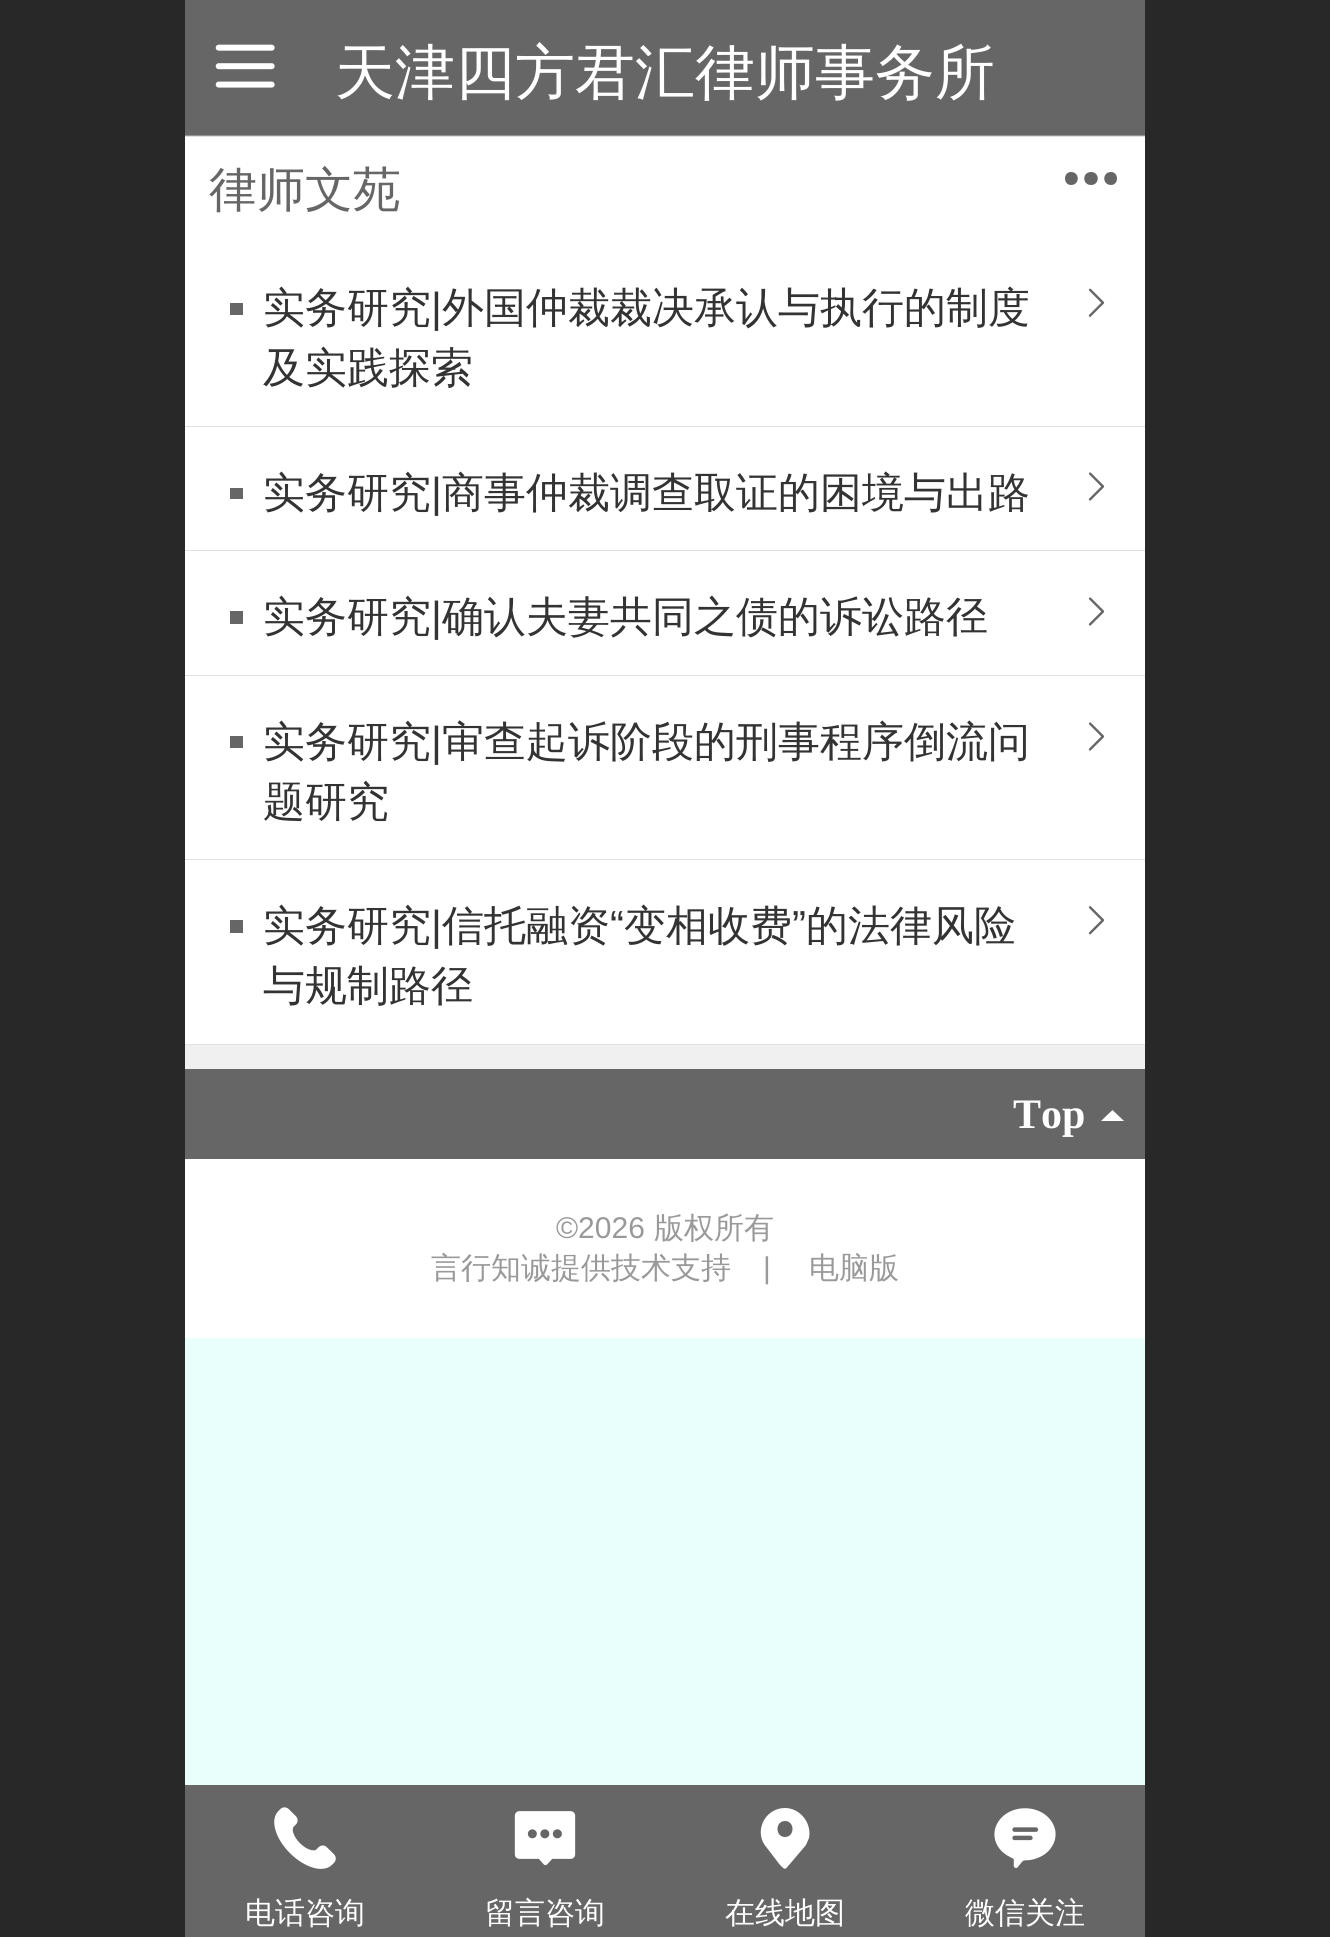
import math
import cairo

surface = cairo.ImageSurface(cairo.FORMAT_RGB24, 1330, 1937)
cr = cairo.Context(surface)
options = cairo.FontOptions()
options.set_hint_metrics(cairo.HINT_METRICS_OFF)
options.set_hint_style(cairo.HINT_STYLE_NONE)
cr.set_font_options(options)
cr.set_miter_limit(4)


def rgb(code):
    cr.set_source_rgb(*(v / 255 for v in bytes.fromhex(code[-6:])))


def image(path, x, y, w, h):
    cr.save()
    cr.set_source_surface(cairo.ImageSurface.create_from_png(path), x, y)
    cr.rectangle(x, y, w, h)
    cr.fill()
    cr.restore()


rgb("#e9fffb")
cr.paint()
rgb("#282828")
cr.rectangle(0, 0, 185, 1937)
cr.fill()
rgb("#666666")
cr.rectangle(185, 0, 960, 135)
cr.fill()
image("img/1.png", 215, 44, 60, 44)
for x, y, w, h, color in [
    (185, 135, 960, 1, "#929292"),
    (185, 1045, 960, 24, "#f0f0f0"),
    (185, 137, 960, 907, "#ffffff"),
    (185, 136, 960, 1, "#e1e1e1"),
    (185, 1044, 960, 1, "#e1e1e1"),
]:
    rgb(color)
    cr.rectangle(x, y, w, h)
    cr.fill()
rgb("#666666")
cr.new_path()
cr.move_to(1071, 185)
cr.curve_to(1063, 185, 1063, 172, 1071, 172)
cr.curve_to(1080, 172, 1080, 185, 1071, 185)
cr.close_path()
cr.move_to(1091, 185)
cr.curve_to(1082, 185, 1082, 172, 1091, 172)
cr.curve_to(1100, 172, 1100, 185, 1091, 185)
cr.close_path()
cr.move_to(1111, 185)
cr.curve_to(1102, 185, 1102, 172, 1111, 172)
cr.curve_to(1119, 172, 1119, 185, 1111, 185)
cr.close_path()
cr.fill()
cr.rectangle(230, 303, 13, 12)
cr.fill()
image("img/2.png", 1088, 288, 17, 29)
rgb("#e0e0e0")
cr.rectangle(185, 426, 960, 1)
cr.fill()
rgb("#666666")
cr.rectangle(230, 488, 13, 11)
cr.fill()
image("img/3.png", 1088, 472, 17, 29)
rgb("#e0e0e0")
cr.rectangle(185, 550, 960, 1)
cr.fill()
rgb("#666666")
cr.rectangle(230, 611, 13, 13)
cr.fill()
image("img/3.png", 1088, 597, 17, 29)
rgb("#e0e0e0")
cr.rectangle(185, 675, 960, 1)
cr.fill()
rgb("#666666")
cr.rectangle(230, 736, 13, 12)
cr.fill()
image("img/3.png", 1088, 722, 17, 29)
rgb("#e0e0e0")
cr.rectangle(185, 859, 960, 1)
cr.fill()
rgb("#666666")
cr.rectangle(230, 920, 13, 13)
cr.fill()
image("img/4.png", 1088, 906, 17, 29)
rgb("#ffffff")
cr.rectangle(185, 1159, 960, 179)
cr.fill()
rgb("#666666")
cr.rectangle(185, 1069, 960, 90)
cr.fill()
rgb("#ffffff")
cr.new_path()
cr.move_to(1124, 1121)
cr.line_to(1101, 1121)
cr.line_to(1112.5, 1110)
cr.close_path()
cr.fill()
rgb("#666666")
cr.rectangle(185, 1785, 960, 152)
cr.fill()
image("img/5.png", 274, 1807, 62, 62)
image("img/6.png", 514, 1811, 62, 55)
rgb("#ffffff")
cr.new_path()
cr.move_to(785, 1808)
cr.curve_to(764, 1808, 753, 1833, 767, 1848)
cr.line_to(780, 1865)
cr.curve_to(785, 1870, 785, 1870, 789, 1865)
cr.line_to(806, 1845)
cr.line_to(809, 1838)
cr.curve_to(812, 1823, 800, 1808, 785, 1808)
cr.close_path()
cr.move_to(785, 1837)
cr.curve_to(775, 1837, 775, 1821, 785, 1821)
cr.curve_to(795, 1821, 795, 1837, 785, 1837)
cr.close_path()
cr.fill()
image("img/7.png", 994, 1808, 62, 60)
rgb("#282828")
cr.rectangle(1145, 0, 185, 1937)
cr.fill()
cr.select_font_face("WenQuanYi Zen Hei Medium")
cr.set_font_size(60)
rgb("#ffffff")
cr.move_to(335, 93)
cr.show_text("天津四方君汇律师事务所")
cr.set_font_size(48)
rgb("#666666")
cr.move_to(209, 206)
cr.show_text("律师文苑")
cr.set_font_size(42)
rgb("#333333")
cr.move_to(263, 322)
cr.show_text("实务研究")
cr.select_font_face("Liberation Sans")
cr.move_to(431, 322)
cr.show_text("|")
cr.select_font_face("WenQuanYi Zen Hei Medium")
for x, y, s in [
    (442, 322, "外国仲裁裁决承认与执行的制度"),
    (263, 382, "及实践探索"),
    (263, 507, "实务研究"),
]:
    cr.move_to(x, y)
    cr.show_text(s)
cr.select_font_face("Liberation Sans")
cr.move_to(431, 507)
cr.show_text("|")
cr.select_font_face("WenQuanYi Zen Hei Medium")
cr.move_to(442, 507)
cr.show_text("商事仲裁调查取证的困境与出路")
cr.move_to(263, 631)
cr.show_text("实务研究")
cr.select_font_face("Liberation Sans")
cr.move_to(431, 631)
cr.show_text("|")
cr.select_font_face("WenQuanYi Zen Hei Medium")
cr.move_to(442, 631)
cr.show_text("确认夫妻共同之债的诉讼路径")
cr.move_to(263, 756)
cr.show_text("实务研究")
cr.select_font_face("Liberation Sans")
cr.move_to(431, 756)
cr.show_text("|")
cr.select_font_face("WenQuanYi Zen Hei Medium")
for x, y, s in [
    (442, 756, "审查起诉阶段的刑事程序倒流问"),
    (263, 816, "题研究"),
    (263, 940, "实务研究"),
]:
    cr.move_to(x, y)
    cr.show_text(s)
cr.select_font_face("Liberation Sans")
cr.move_to(431, 940)
cr.show_text("|")
cr.select_font_face("WenQuanYi Zen Hei Medium")
cr.move_to(442, 940)
cr.show_text("信托融资")
cr.select_font_face("Liberation Sans")
cr.move_to(610, 940)
cr.show_text("“")
cr.select_font_face("WenQuanYi Zen Hei Medium")
cr.move_to(624, 940)
cr.show_text("变相收费")
cr.select_font_face("Liberation Sans")
cr.move_to(792, 940)
cr.show_text("”")
cr.select_font_face("WenQuanYi Zen Hei Medium")
cr.move_to(806, 940)
cr.show_text("的法律风险")
cr.move_to(263, 1000)
cr.show_text("与规制路径")
cr.select_font_face("Liberation Serif", cairo.FONT_SLANT_NORMAL, cairo.FONT_WEIGHT_BOLD)
rgb("#ffffff")
cr.move_to(1013, 1128)
cr.show_text("Top")
cr.select_font_face("Liberation Sans")
cr.set_font_size(30)
rgb("#999999")
cr.move_to(556, 1238)
cr.show_text("©2026")
cr.select_font_face("WenQuanYi Zen Hei Medium")
cr.move_to(654, 1238)
cr.show_text("版权所有")
cr.move_to(431, 1278)
cr.show_text("言行知诚提供技术支持")
cr.select_font_face("Liberation Sans")
cr.move_to(763, 1278)
cr.show_text("|")
cr.select_font_face("WenQuanYi Zen Hei Medium")
cr.move_to(809, 1278)
cr.show_text("电脑版")
rgb("#ffffff")
for x, y, s in [
    (245, 1923, "电话咨询"),
    (485, 1923, "留言咨询"),
    (725, 1923, "在线地图"),
    (965, 1923, "微信关注"),
]:
    cr.move_to(x, y)
    cr.show_text(s)
surface.write_to_png("page.png")
